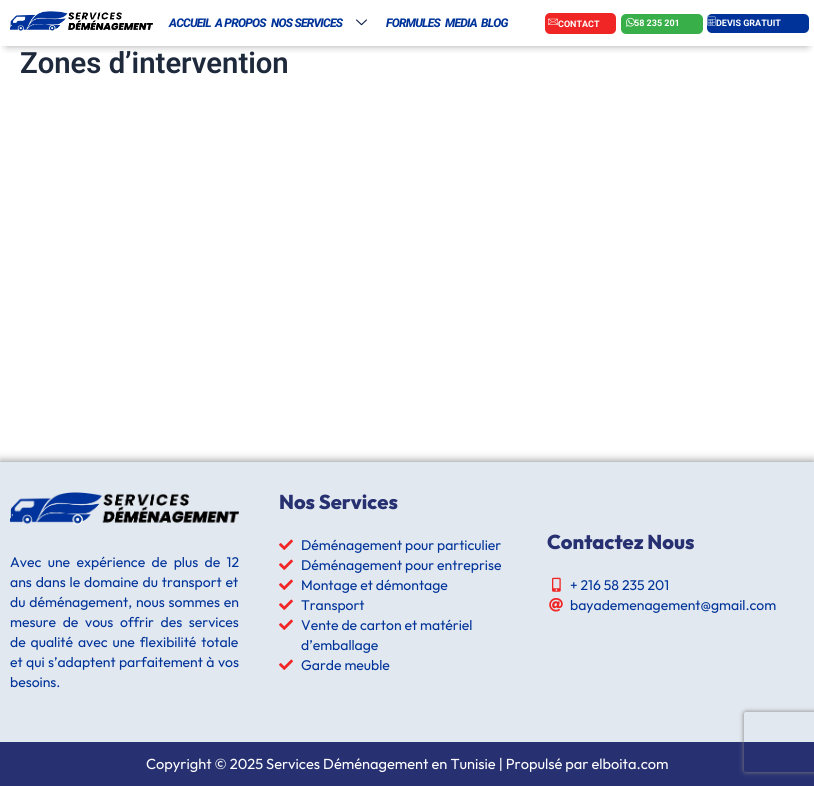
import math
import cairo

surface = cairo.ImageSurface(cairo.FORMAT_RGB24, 814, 786)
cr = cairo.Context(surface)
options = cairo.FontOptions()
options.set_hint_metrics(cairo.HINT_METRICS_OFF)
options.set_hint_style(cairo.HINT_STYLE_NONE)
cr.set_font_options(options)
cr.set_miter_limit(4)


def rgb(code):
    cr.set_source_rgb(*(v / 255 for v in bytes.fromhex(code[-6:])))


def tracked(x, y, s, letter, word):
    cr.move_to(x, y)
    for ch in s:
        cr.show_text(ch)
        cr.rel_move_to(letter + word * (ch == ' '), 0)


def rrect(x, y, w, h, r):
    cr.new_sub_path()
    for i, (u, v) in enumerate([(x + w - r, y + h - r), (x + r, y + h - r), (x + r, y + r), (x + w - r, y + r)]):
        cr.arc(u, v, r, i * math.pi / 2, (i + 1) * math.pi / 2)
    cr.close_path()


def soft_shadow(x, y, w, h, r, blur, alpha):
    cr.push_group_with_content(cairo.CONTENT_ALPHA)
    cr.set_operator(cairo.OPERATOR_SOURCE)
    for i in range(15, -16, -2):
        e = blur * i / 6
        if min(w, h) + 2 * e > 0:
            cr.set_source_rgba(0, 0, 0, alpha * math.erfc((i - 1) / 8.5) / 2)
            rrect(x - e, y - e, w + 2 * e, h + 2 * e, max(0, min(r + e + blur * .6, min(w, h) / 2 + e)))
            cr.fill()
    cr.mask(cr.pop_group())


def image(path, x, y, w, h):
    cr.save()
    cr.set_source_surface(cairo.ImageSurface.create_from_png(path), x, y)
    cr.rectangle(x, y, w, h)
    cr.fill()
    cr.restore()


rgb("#ffffff")
cr.paint()
cr.save()
cr.rectangle(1, 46, 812, 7)
cr.clip()
rgb("#000000")
soft_shadow(7, 12, 800, 32, 0, 5, 0.5)
cr.restore()
image("img/1.png", 10, 11, 143, 20)
image("img/2.png", 356, 19, 11, 7)
rgb("#f02525")
rrect(545, 13, 71, 21, 5)
cr.fill()
image("img/3.png", 548, 18, 10, 7)
rgb("#39af49")
rrect(621, 14, 82, 20, 5)
cr.fill()
rgb("#003399")
rrect(707, 14, 102, 19, 5)
cr.fill()
image("img/5.png", 707, 16, 9, 10)
rgb("#000000")
soft_shadow(0, 462, 814, 280, 0, 5, 0.5)
rgb("#e2e8f0")
cr.rectangle(0, 462, 814, 280)
cr.fill()
image("img/6.png", 10, 492, 229, 33)
image("img/7.png", 279, 539, 14, 11)
image("img/7.png", 279, 559, 14, 11)
image("img/7.png", 279, 579, 14, 11)
image("img/7.png", 279, 599, 14, 11)
image("img/7.png", 279, 619, 14, 11)
image("img/7.png", 279, 659, 14, 11)
image("img/8.png", 552, 577, 9, 15)
image("img/9.png", 549, 598, 14, 14)
rgb("#273171")
cr.rectangle(0, 742, 814, 44)
cr.fill()
cr.save()
cr.set_fill_rule(cairo.FILL_RULE_EVEN_ODD)
cr.new_path()
cr.move_to(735, 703)
cr.line_to(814, 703)
cr.line_to(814, 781)
cr.line_to(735, 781)
cr.close_path()
cr.move_to(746, 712)
cr.line_to(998, 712)
cr.curve_to(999, 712, 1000, 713, 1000, 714)
cr.line_to(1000, 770)
cr.curve_to(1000, 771, 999, 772, 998, 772)
cr.line_to(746, 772)
cr.curve_to(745, 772, 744, 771, 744, 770)
cr.line_to(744, 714)
cr.curve_to(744, 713, 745, 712, 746, 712)
cr.close_path()
cr.clip()
rgb("#808080")
soft_shadow(744, 712, 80, 60, 2, 2.5, 1)
cr.restore()
cr.select_font_face("Roboto ExtraBold", cairo.FONT_SLANT_ITALIC)
cr.set_font_size(12)
rgb("#003399")
for x, y, s in [
    (169, 27, "ACCUEIL"),
    (215, 27, "A PROPOS"),
    (271, 27, "NOS SERVICES"),
    (386, 27, "FORMULES"),
    (445, 27, "MEDIA"),
    (481, 27, "BLOG"),
]:
    tracked(x, y, s, -0.75, 0)
cr.select_font_face("Roboto", cairo.FONT_SLANT_NORMAL, cairo.FONT_WEIGHT_BOLD)
cr.set_font_size(9)
rgb("#ffffff")
cr.move_to(558, 27)
cr.show_text("CONTACT")
cr.move_to(634, 26)
cr.show_text("58 235 201")
image("img/4.png", 626, 17, 9, 10)
cr.move_to(716, 26)
cr.show_text("DEVIS GRATUIT")
cr.select_font_face("Roboto SemiBold")
cr.set_font_size(29.25)
rgb("#1e293b")
cr.move_to(20, 73)
cr.show_text("Zones d’intervention")
cr.select_font_face("Outfit")
cr.set_font_size(14)
rgb("#003399")
tracked(10, 567, "Avec une expérience de plus de 12", 0, 3.5)
tracked(10, 587, "ans dans le domaine du transport et", 0, 1)
tracked(10, 607, "du déménagement, nous sommes en", 0, 1)
tracked(10, 627, "mesure de vous offrir des services", 0, 3.75)
tracked(10, 647, "de qualité avec une flexibilité totale", 0, 2)
tracked(10, 667, "et qui s’adaptent parfaitement à vos", 0, 0.5)
cr.move_to(10, 687)
cr.show_text("besoins.")
cr.select_font_face("Outfit ExtraBold")
cr.set_font_size(20)
rgb("#273171")
cr.move_to(279, 509)
cr.show_text("Nos Services")
cr.select_font_face("Outfit")
cr.set_font_size(14)
rgb("#003399")
for x, y, s in [
    (301, 550, "Déménagement pour particulier"),
    (301, 570, "Déménagement pour entreprise"),
    (301, 590, "Montage et démontage"),
    (301, 610, "Transport"),
    (301, 630, "Vente de carton et matériel"),
    (301, 650, "d’emballage"),
    (301, 670, "Garde meuble"),
]:
    cr.move_to(x, y)
    cr.show_text(s)
cr.select_font_face("Outfit ExtraBold")
cr.set_font_size(20)
rgb("#273171")
cr.move_to(547, 549)
cr.show_text("Contactez Nous")
cr.select_font_face("Outfit")
cr.set_font_size(14)
rgb("#003399")
cr.move_to(570, 590)
cr.show_text("+ 216 58 235 201")
cr.move_to(570, 610)
cr.show_text("bayademenagement@gmail.com")
cr.set_font_size(14.6)
rgb("#ffffff")
cr.move_to(146, 769)
cr.show_text("Copyright © 2025 Services Déménagement en Tunisie | Propulsé par elboita.com")
surface.write_to_png("page.png")
